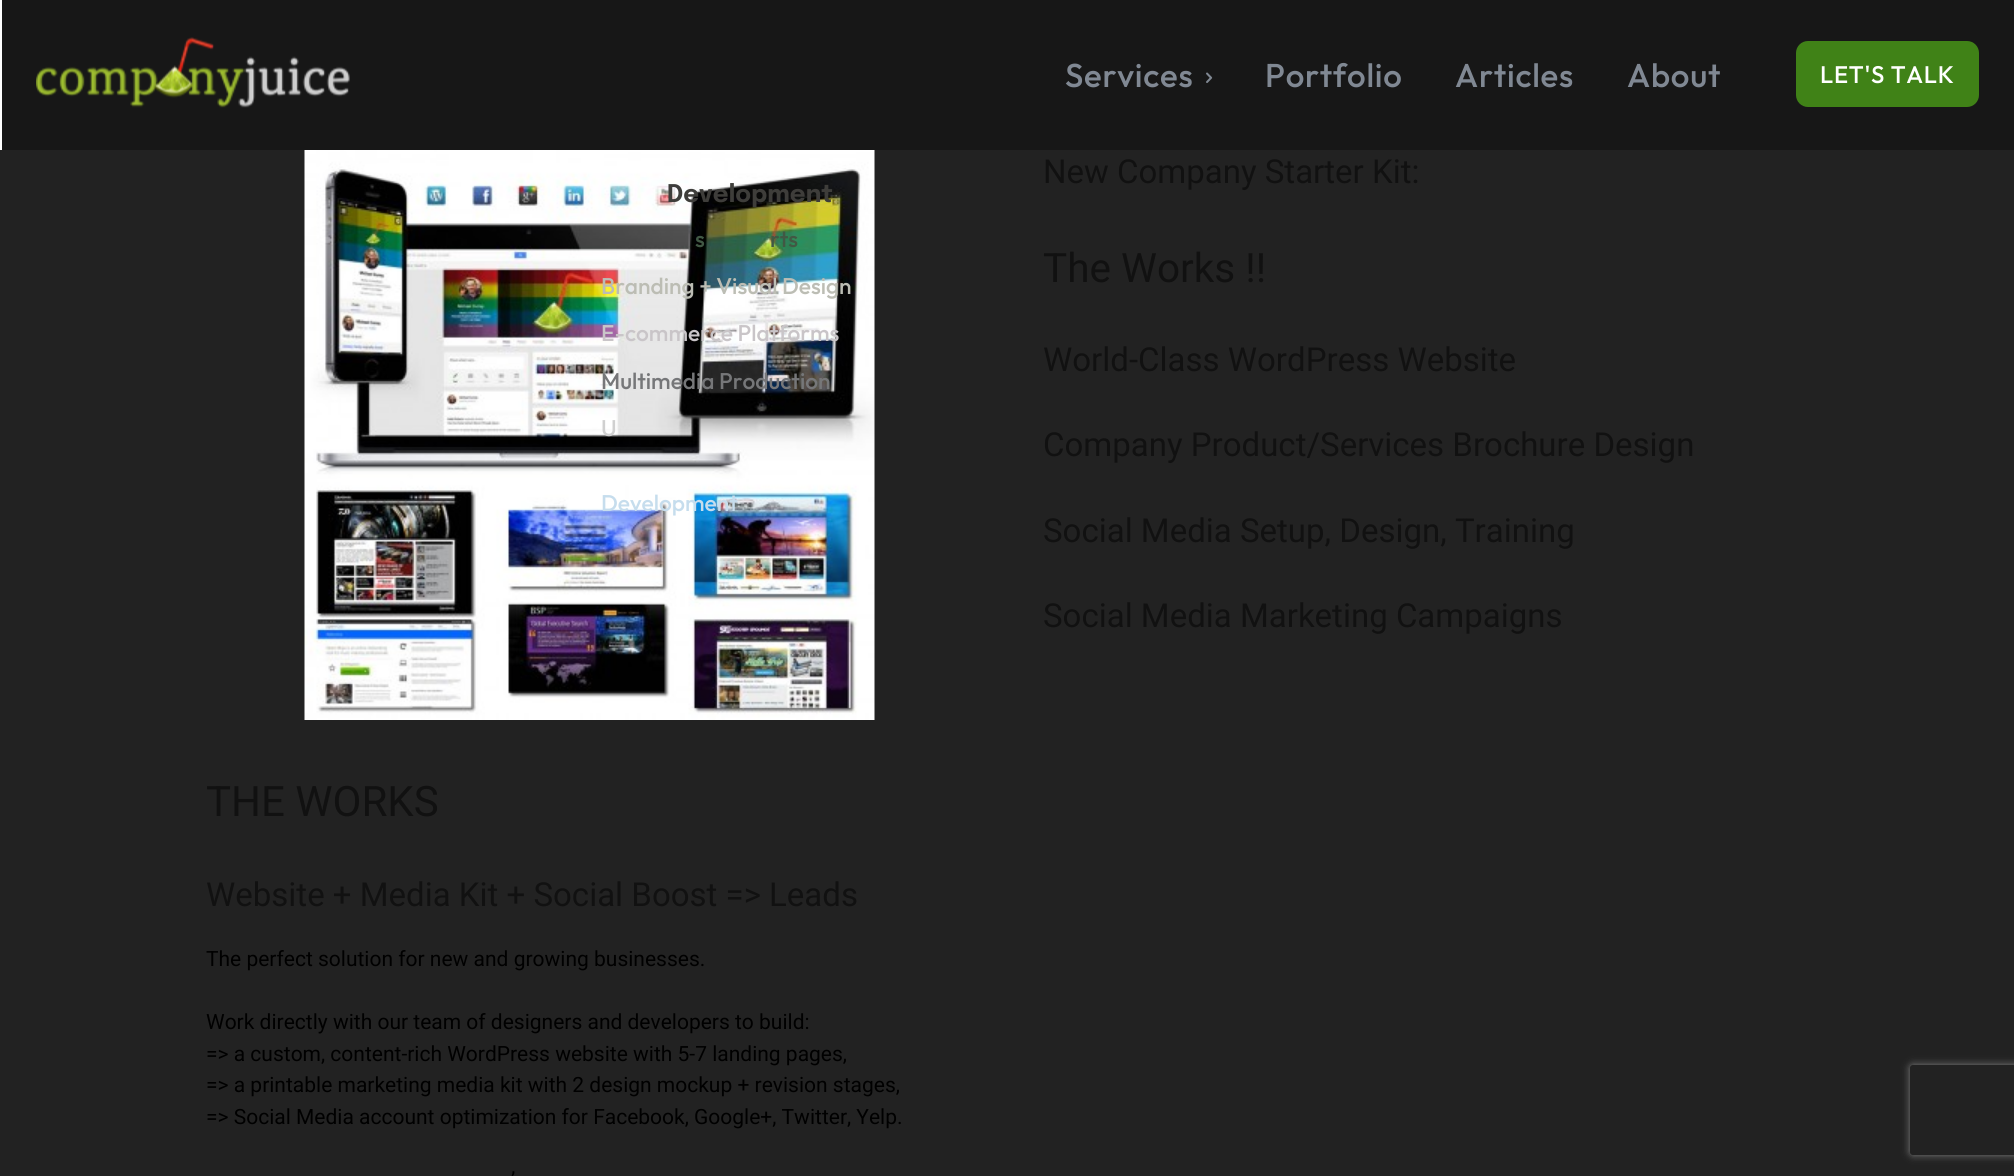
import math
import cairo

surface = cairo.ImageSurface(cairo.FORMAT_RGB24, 2014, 1176)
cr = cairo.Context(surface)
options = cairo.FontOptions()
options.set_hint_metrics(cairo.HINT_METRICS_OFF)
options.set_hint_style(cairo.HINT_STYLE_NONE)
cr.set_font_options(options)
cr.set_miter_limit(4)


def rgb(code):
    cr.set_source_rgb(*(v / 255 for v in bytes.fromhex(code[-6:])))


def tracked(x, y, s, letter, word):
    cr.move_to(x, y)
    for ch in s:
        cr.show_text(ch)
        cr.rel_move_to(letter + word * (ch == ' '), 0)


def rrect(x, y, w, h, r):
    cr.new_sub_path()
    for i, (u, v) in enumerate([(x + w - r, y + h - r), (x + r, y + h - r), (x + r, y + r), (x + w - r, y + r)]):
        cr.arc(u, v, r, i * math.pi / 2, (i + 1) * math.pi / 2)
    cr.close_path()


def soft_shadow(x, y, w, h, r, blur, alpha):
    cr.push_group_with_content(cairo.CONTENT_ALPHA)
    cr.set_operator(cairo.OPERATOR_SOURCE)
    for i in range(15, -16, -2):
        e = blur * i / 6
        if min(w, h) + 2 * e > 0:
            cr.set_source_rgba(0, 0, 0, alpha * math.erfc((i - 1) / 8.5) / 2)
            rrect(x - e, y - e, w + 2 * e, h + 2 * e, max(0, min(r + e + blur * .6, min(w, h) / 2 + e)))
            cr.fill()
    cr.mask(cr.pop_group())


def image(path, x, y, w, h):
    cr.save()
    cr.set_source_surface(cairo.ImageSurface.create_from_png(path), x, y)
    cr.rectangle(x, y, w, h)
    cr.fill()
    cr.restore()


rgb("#222222")
cr.paint()
rgb("#ffffff")
cr.rectangle(0, 0, 2, 150)
cr.fill()
rgb("#171717")
cr.rectangle(2, 0, 2012, 150)
cr.fill()
image("img/1.png", 36, 37, 314, 71)
image("img/2.png", 1206, 72, 7, 11)
rgb("#408217")
rrect(1796, 41, 183, 66, 12)
cr.fill()
image("img/3.png", 304, 150, 571, 570)
cr.save()
cr.set_fill_rule(cairo.FILL_RULE_EVEN_ODD)
cr.new_path()
cr.move_to(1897, 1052)
cr.line_to(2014, 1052)
cr.line_to(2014, 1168)
cr.line_to(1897, 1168)
cr.close_path()
cr.move_to(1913, 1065)
cr.line_to(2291, 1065)
cr.curve_to(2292.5, 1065, 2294, 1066.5, 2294, 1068)
cr.line_to(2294, 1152)
cr.curve_to(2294, 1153.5, 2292.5, 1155, 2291, 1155)
cr.line_to(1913, 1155)
cr.curve_to(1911.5, 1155, 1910, 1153.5, 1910, 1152)
cr.line_to(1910, 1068)
cr.curve_to(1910, 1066.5, 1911.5, 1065, 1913, 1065)
cr.close_path()
cr.clip()
rgb("#808080")
soft_shadow(1910, 1065, 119, 90, 3, 4, 1)
cr.restore()
cr.select_font_face("Outfit Medium")
cr.set_font_size(33)
rgb("#808893")
for x, y, s in [
    (1065, 87, "Services"),
    (1265, 87, "Portfolio"),
    (1455, 87, "Articles"),
    (1627, 87, "About"),
]:
    tracked(x, y, s, 0.75, 0)
cr.set_font_size(24)
rgb("#ffffff")
tracked(1820, 83, "LET'S TALK", 0.75, 0)
cr.select_font_face("Roboto")
cr.set_font_size(33)
rgb("#111111")
cr.move_to(1043, 183)
cr.show_text("New Company Starter Kit:")
cr.set_font_size(40.5)
cr.move_to(1043, 282)
cr.show_text("The Works !!")
cr.set_font_size(33)
for x, y, s in [
    (1043, 371, "World-Class WordPress Website"),
    (1043, 456, "Company Product/Services Brochure Design"),
    (1043, 542, "Social Media Setup, Design, Training"),
    (1043, 627, "Social Media Marketing Campaigns"),
]:
    cr.move_to(x, y)
    cr.show_text(s)
cr.set_font_size(42)
cr.move_to(206, 816)
cr.show_text("THE WORKS")
cr.set_font_size(33)
cr.move_to(206, 906)
cr.show_text("Website + Media Kit + Social Boost => Leads")
cr.set_font_size(21)
rgb("#000000")
for x, y, s in [
    (206, 966, "The perfect solution for new and growing businesses."),
    (206, 1029, "Work directly with our team of designers and developers to build:"),
    (206, 1061, "=> a custom, content-rich WordPress website with 5-7 landing pages,"),
    (206, 1092, "=> a printable marketing media kit with 2 design mockup + revision stages,"),
    (206, 1124, "=> Social Media account optimization for Facebook, Google+, Twitter, Yelp."),
    (511, 1187, "’"),
]:
    cr.move_to(x, y)
    cr.show_text(s)
cr.select_font_face("Epilogue", cairo.FONT_SLANT_NORMAL, cairo.FONT_WEIGHT_BOLD)
cr.set_font_size(24.25)
rgb("#3e3d3a")
cr.move_to(667, 202)
cr.show_text("Development")
cr.select_font_face("Outfit Medium")
cr.set_font_size(22.75)
rgb("#415844")
cr.move_to(695, 247)
cr.show_text("s")
cr.move_to(770, 247)
cr.show_text("rts")
rgb("#bcbdb4")
cr.move_to(601, 294)
cr.show_text("Branding + Visual Design")
rgb("#c9c5c8")
cr.move_to(601, 341)
cr.show_text("E-commerce Platforms")
rgb("#767779")
cr.move_to(601, 389)
cr.show_text("Multimedia Production")
rgb("#d0d0d0")
cr.move_to(601, 436)
cr.show_text("U")
rgb("#c6dded")
cr.move_to(601, 511)
cr.show_text("Development")
surface.write_to_png("page.png")
